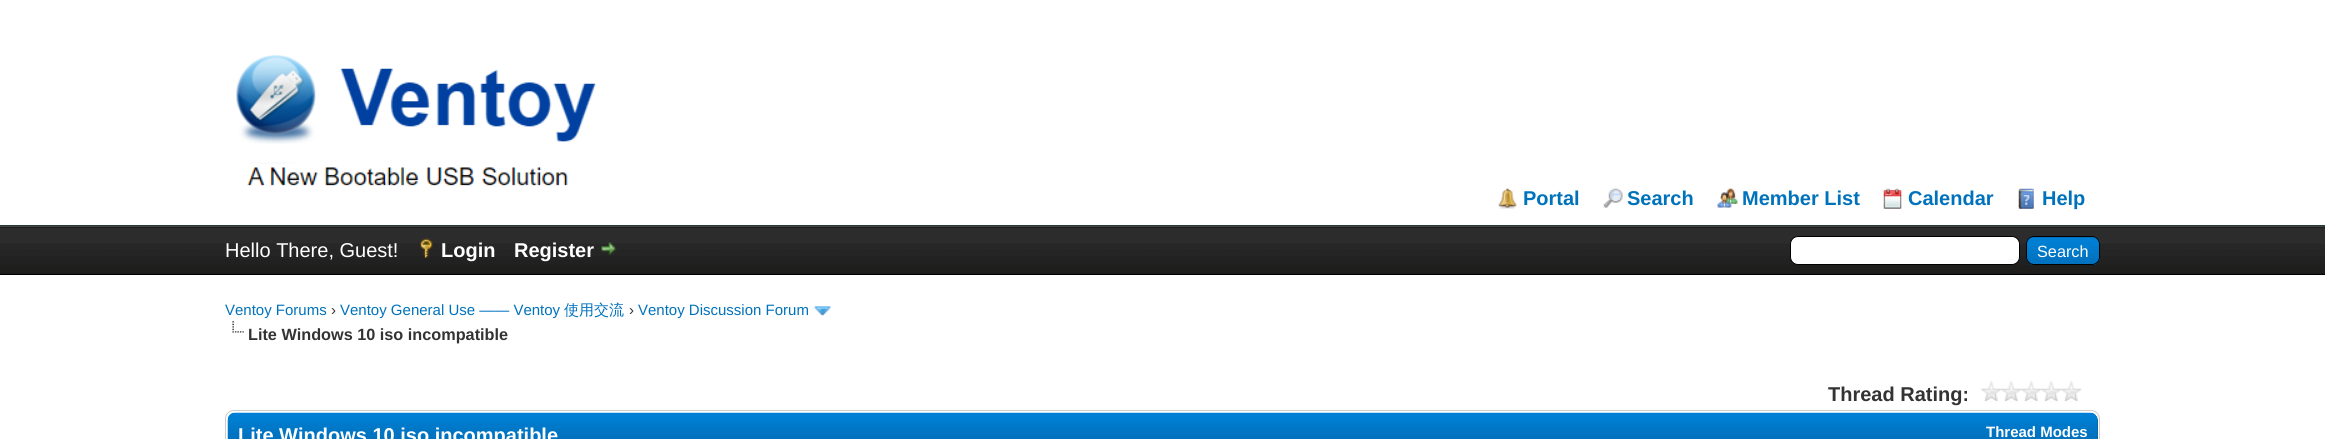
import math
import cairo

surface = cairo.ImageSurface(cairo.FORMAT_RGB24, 2325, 439)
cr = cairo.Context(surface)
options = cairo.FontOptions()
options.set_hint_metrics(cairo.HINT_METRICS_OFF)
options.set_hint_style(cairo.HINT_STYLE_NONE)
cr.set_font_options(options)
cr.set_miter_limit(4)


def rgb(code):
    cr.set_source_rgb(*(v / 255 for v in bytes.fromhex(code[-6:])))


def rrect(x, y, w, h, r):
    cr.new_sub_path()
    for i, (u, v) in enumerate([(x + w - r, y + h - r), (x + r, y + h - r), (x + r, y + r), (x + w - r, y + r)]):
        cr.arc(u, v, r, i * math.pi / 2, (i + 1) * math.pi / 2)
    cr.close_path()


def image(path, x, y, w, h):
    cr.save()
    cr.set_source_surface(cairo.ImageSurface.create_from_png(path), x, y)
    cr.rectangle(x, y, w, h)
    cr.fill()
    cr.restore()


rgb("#ffffff")
cr.paint()
rgb("#263c30")
cr.rectangle(0, 225, 2325, 1)
cr.fill()
image("img/1.png", 236, 55, 361, 131)
image("img/2.png", 1498, 188, 19, 21)
image("img/3.png", 1603, 188, 20, 20)
image("img/4.png", 1717, 188, 21, 20)
image("img/5.png", 1883, 188, 19, 21)
image("img/6.png", 2018, 188, 16, 21)
rgb("#0f0f0f")
cr.rectangle(0, 227, 2325, 1)
cr.fill()
image("img/7.png", 0, 227, 2325, 47)
rgb("#444444")
cr.rectangle(0, 226, 2325, 1)
cr.fill()
rgb("#000000")
cr.rectangle(0, 274, 2325, 1)
cr.fill()
image("img/8.png", 420, 238, 13, 21)
image("img/9.png", 601, 242, 16, 14)
rgb("#ffffff")
rrect(1790.5, 236.5, 229, 28, 7.5)
cr.fill_preserve()
rgb("#000000")
cr.set_line_width(1)
cr.stroke()
rgb("#0066a2")
rrect(2026, 236, 74, 29, 8)
cr.fill()
image("img/10.png", 2026, 237, 74, 28)
rrect(2026.5, 236.5, 73, 28, 7.5)
rgb("#000000")
cr.stroke()
image("img/11.png", 813, 306, 19, 10)
image("img/12.png", 232, 321, 12, 12)
image("img/13.png", 1981, 381, 101, 21)
rrect(225.5, 410.5, 1874, 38, 8.5)
rgb("#cccccc")
cr.stroke()
rgb("#0066a2")
cr.new_path()
cr.move_to(236, 413)
cr.line_to(2090, 413)
cr.curve_to(2094.5, 413, 2098, 416.5, 2098, 421)
cr.line_to(2098, 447)
cr.line_to(228, 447)
cr.line_to(228, 421)
cr.curve_to(228, 416.5, 231.5, 413, 236, 413)
cr.close_path()
cr.fill()
image("img/14.png", 227, 412, 1871, 27)
cr.select_font_face("Liberation Sans", cairo.FONT_SLANT_NORMAL, cairo.FONT_WEIGHT_BOLD)
cr.set_font_size(20)
rgb("#0072bc")
for x, y, s in [
    (1523, 205, "Portal"),
    (1627, 205, "Search"),
    (1742, 205, "Member List"),
    (1908, 205, "Calendar"),
    (2042, 205, "Help"),
]:
    cr.move_to(x, y)
    cr.show_text(s)
cr.select_font_face("Liberation Sans")
rgb("#ffffff")
cr.move_to(225, 257)
cr.show_text("Hello There, Guest!")
cr.select_font_face("Liberation Sans", cairo.FONT_SLANT_NORMAL, cairo.FONT_WEIGHT_BOLD)
cr.move_to(441, 257)
cr.show_text("Login")
cr.move_to(514, 257)
cr.show_text("Register")
cr.select_font_face("Liberation Sans")
cr.set_font_size(16.25)
cr.move_to(2037, 257)
cr.show_text("Search")
cr.set_font_size(15)
rgb("#0072bc")
cr.move_to(225, 315)
cr.show_text("Ventoy Forums")
rgb("#333333")
cr.move_to(331, 315)
cr.show_text("›")
rgb("#0072bc")
cr.move_to(340, 315)
cr.show_text("Ventoy General Use —— Ventoy")
cr.select_font_face("WenQuanYi Zen Hei Medium")
cr.move_to(564, 315)
cr.show_text("使用交流")
cr.select_font_face("Liberation Sans")
rgb("#333333")
cr.move_to(629, 315)
cr.show_text("›")
rgb("#0072bc")
cr.move_to(638, 315)
cr.show_text("Ventoy Discussion Forum")
cr.select_font_face("Liberation Sans", cairo.FONT_SLANT_NORMAL, cairo.FONT_WEIGHT_BOLD)
cr.set_font_size(16.25)
rgb("#333333")
cr.move_to(248, 340)
cr.show_text("Lite Windows 10 iso incompatible")
cr.set_font_size(20)
cr.move_to(1828, 401)
cr.show_text("Thread Rating:")
rgb("#ffffff")
cr.move_to(238, 442)
cr.show_text("Lite Windows 10 iso incompatible")
cr.set_font_size(15)
cr.move_to(1986, 437)
cr.show_text("Thread Modes")
surface.write_to_png("page.png")
